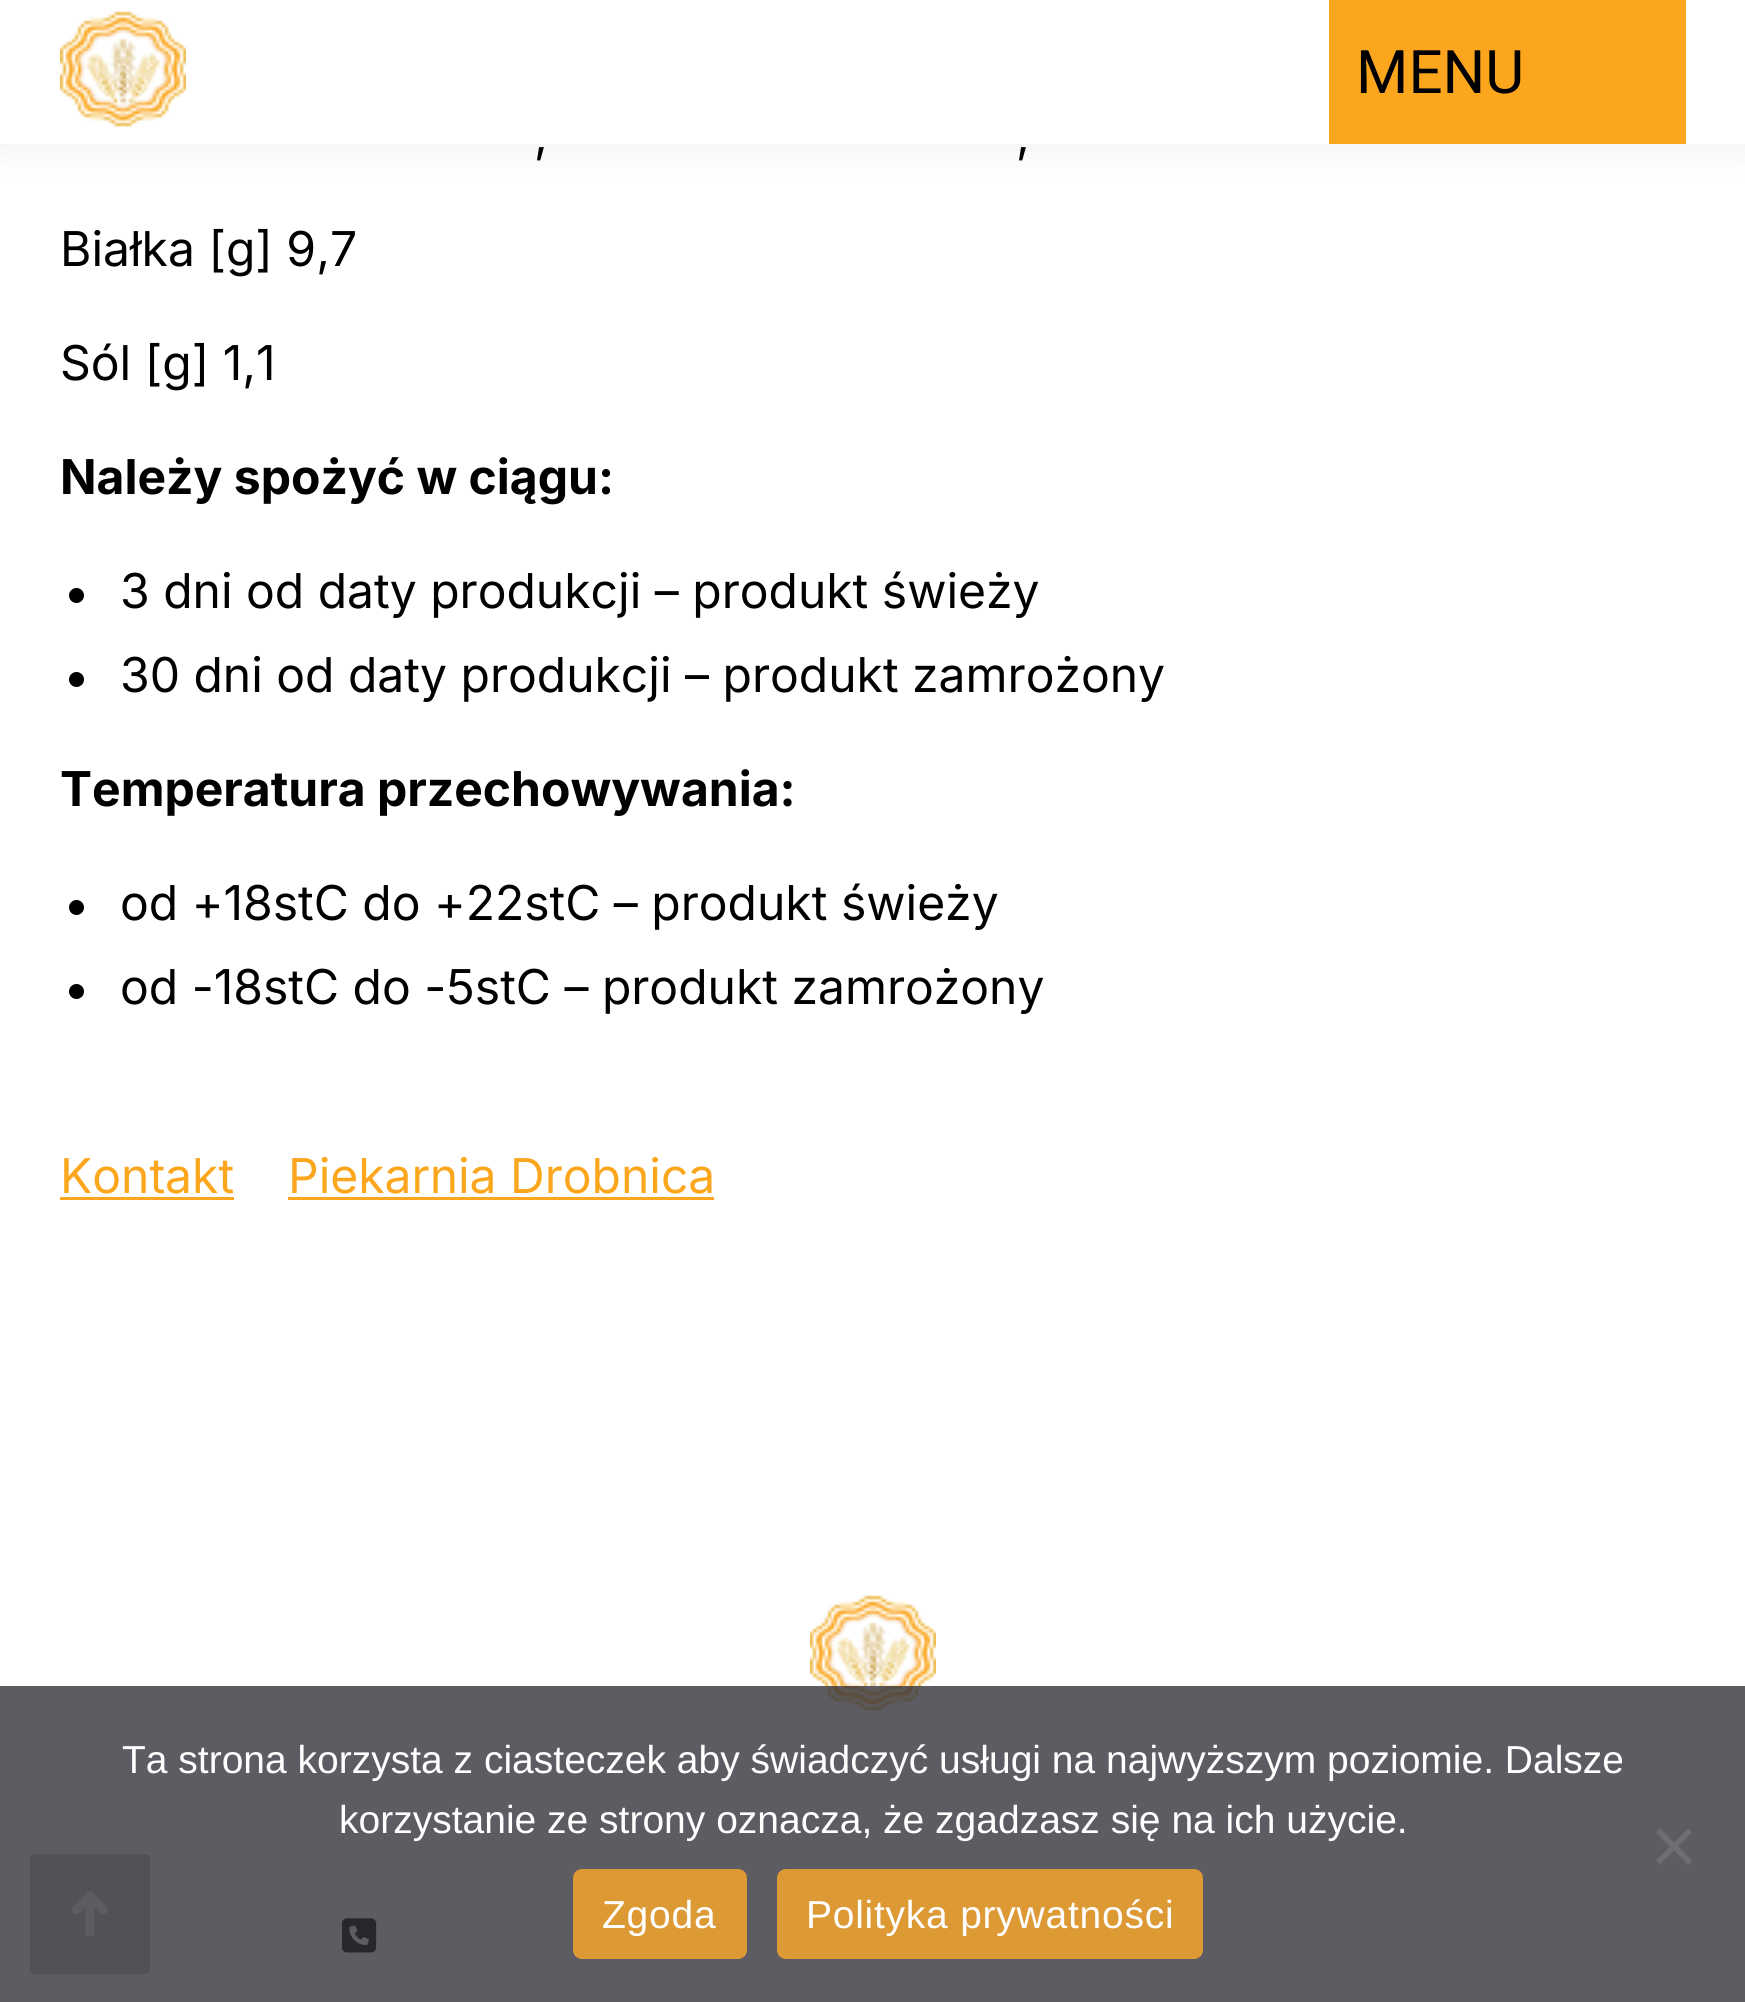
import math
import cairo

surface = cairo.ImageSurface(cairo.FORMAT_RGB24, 1745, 2002)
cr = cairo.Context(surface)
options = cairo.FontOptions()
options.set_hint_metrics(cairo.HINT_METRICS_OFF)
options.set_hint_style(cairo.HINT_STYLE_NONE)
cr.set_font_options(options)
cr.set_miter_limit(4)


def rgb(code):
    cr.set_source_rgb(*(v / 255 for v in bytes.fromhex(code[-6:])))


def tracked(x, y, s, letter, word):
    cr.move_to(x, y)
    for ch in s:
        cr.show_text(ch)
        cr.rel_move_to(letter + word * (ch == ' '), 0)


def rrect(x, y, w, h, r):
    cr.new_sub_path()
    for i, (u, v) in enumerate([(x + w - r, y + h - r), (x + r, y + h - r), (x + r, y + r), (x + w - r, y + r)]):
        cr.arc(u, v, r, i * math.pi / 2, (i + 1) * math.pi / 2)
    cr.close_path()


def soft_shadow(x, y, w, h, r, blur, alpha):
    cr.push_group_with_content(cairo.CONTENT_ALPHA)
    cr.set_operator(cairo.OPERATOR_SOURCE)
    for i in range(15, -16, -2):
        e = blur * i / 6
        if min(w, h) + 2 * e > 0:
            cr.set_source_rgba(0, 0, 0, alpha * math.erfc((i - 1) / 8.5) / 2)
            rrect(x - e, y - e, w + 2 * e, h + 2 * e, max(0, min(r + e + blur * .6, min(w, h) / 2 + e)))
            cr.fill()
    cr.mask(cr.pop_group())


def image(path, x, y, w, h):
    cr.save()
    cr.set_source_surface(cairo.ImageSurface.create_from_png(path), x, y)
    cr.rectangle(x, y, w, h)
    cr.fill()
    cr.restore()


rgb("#ffffff")
cr.paint()
rgb("#000000")
soft_shadow(-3, -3, 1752, 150, 0, 22.5, 0.07)
rgb("#ffffff")
cr.rectangle(0, 0, 1745, 144)
cr.fill()
image("img/1.png", 60, 11, 126, 116)
rgb("#fca61d")
cr.rectangle(1329, 0, 357, 144)
cr.fill()
rgb("#000000")
cr.arc(76.5, 595.5, 7.5, 0, 2 * math.pi)
cr.fill()
cr.arc(76.5, 679.5, 7.5, 0, 2 * math.pi)
cr.fill()
cr.arc(76.5, 907.5, 7.5, 0, 2 * math.pi)
cr.fill()
cr.arc(76.5, 991.5, 7.5, 0, 2 * math.pi)
cr.fill()
rgb("#fca61d")
cr.rectangle(60, 1197, 174, 3)
cr.fill()
cr.rectangle(288, 1197, 426, 3)
cr.fill()
rgb("#cccccc")
rrect(30, 1854, 120, 120, 3)
cr.fill()
image("img/2.png", 72, 1891, 36, 46)
image("img/1.png", 810, 1595, 126, 116)
image("img/3.png", 342, 1918, 35, 35)
cr.set_source_rgba(0.196, 0.196, 0.227, 0.79)
cr.rectangle(0, 1686, 1745, 316)
cr.fill()
rgb("#6f6f72")
cr.new_path()
cr.move_to(1688, 1828.5)
cr.line_to(1692, 1832.5)
cr.line_to(1660, 1864.5)
cr.line_to(1656, 1860.5)
cr.close_path()
cr.fill()
cr.new_path()
cr.move_to(1656, 1832.5)
cr.line_to(1660, 1828.5)
cr.line_to(1692, 1860.5)
cr.line_to(1688, 1864.5)
cr.close_path()
cr.fill()
rgb("#dd9933")
rrect(573, 1869, 174, 90, 9)
cr.fill()
rrect(777, 1869, 426, 90, 9)
cr.fill()
cr.select_font_face("Roboto")
cr.set_font_size(60)
rgb("#000000")
cr.move_to(1356, 93)
cr.show_text("MENU")
cr.select_font_face("Inter")
cr.set_font_size(48)
for x, y, s in [
    (534, 152, ","),
    (1016, 152, ","),
    (60, 266, "Białka [g] 9,7"),
    (60, 380, "Sól [g] 1,1"),
]:
    cr.move_to(x, y)
    cr.show_text(s)
cr.select_font_face("Inter", cairo.FONT_SLANT_NORMAL, cairo.FONT_WEIGHT_BOLD)
cr.move_to(60, 494)
cr.show_text("Należy spożyć w ciągu:")
cr.select_font_face("Inter")
cr.move_to(120, 608)
cr.show_text("3 dni od daty produkcji – produkt świeży")
cr.move_to(120, 692)
cr.show_text("30 dni od daty produkcji – produkt zamrożony")
cr.select_font_face("Inter", cairo.FONT_SLANT_NORMAL, cairo.FONT_WEIGHT_BOLD)
cr.move_to(60, 806)
cr.show_text("Temperatura przechowywania:")
cr.select_font_face("Inter")
cr.move_to(120, 920)
cr.show_text("od +18stC do +22stC – produkt świeży")
cr.move_to(120, 1004)
cr.show_text("od -18stC do -5stC – produkt zamrożony")
rgb("#fca61d")
cr.move_to(60, 1193)
cr.show_text("Kontakt")
cr.move_to(288, 1193)
cr.show_text("Piekarnia Drobnica")
cr.select_font_face("Liberation Sans")
cr.set_font_size(39)
rgb("#ffffff")
cr.move_to(122, 1773)
cr.show_text("Ta strona korzysta z ciasteczek aby świadczyć usługi na najwyższym poziomie. Dalsze")
cr.move_to(339, 1833)
cr.show_text("korzystanie ze strony oznacza, że zgadzasz się na ich użycie.")
tracked(602, 1928, "Zgoda", 0.75, 0)
tracked(806, 1928, "Polityka prywatności", 0.75, 0)
surface.write_to_png("page.png")
